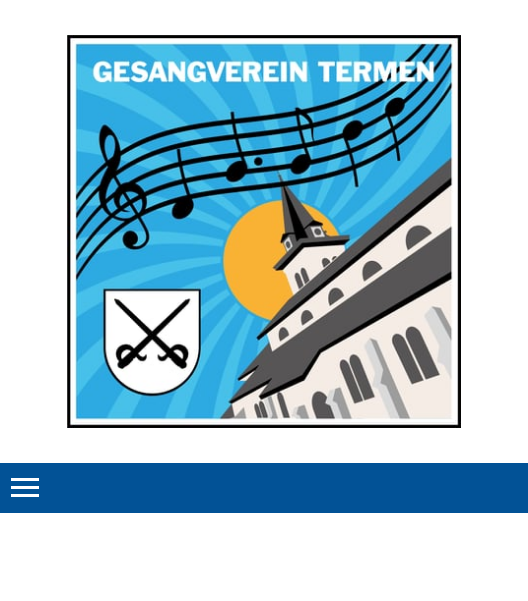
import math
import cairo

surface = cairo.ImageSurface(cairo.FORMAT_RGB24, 528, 601)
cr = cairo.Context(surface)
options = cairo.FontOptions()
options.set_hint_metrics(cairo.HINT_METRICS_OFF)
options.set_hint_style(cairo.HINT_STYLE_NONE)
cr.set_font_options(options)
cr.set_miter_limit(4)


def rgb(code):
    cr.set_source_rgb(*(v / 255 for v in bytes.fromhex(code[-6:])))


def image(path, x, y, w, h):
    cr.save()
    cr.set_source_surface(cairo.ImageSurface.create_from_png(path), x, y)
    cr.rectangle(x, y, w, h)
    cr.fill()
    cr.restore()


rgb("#ffffff")
cr.paint()
image("img/1.png", 67, 35, 394, 393)
for x, y, w, h, color in [
    (0, 463, 528, 50, "#025296"),
    (11, 486, 28, 3, "#ffffff"),
    (11, 478, 28, 3, "#ffffff"),
    (11, 494, 28, 3, "#ffffff"),
]:
    rgb(color)
    cr.rectangle(x, y, w, h)
    cr.fill()
surface.write_to_png("page.png")
